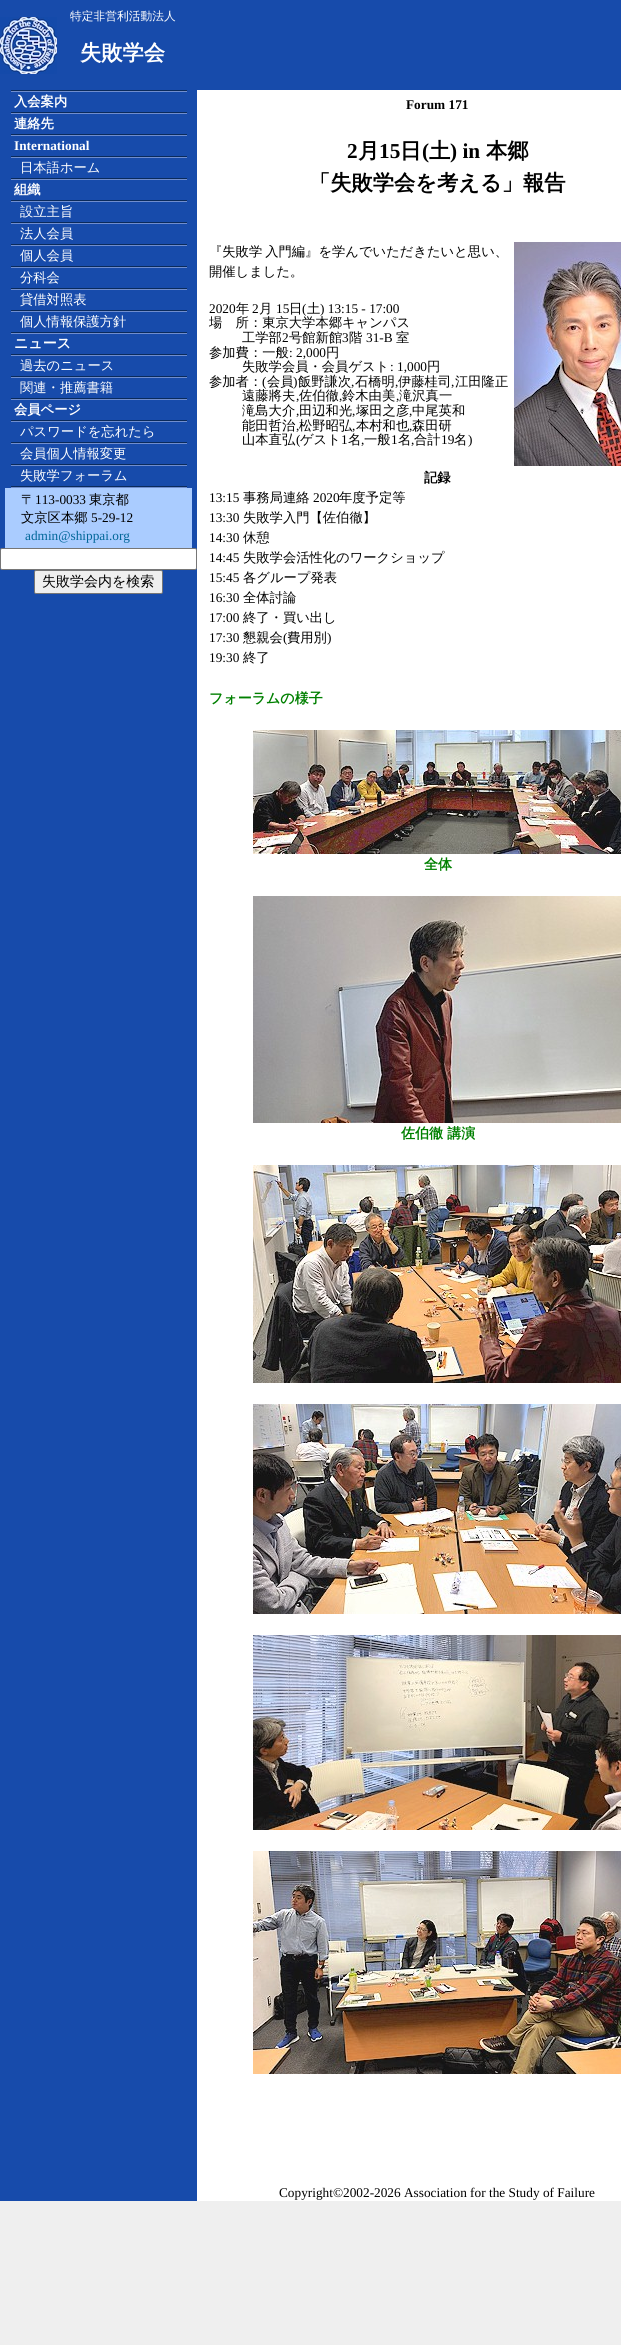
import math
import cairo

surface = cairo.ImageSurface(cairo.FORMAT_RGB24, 621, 2345)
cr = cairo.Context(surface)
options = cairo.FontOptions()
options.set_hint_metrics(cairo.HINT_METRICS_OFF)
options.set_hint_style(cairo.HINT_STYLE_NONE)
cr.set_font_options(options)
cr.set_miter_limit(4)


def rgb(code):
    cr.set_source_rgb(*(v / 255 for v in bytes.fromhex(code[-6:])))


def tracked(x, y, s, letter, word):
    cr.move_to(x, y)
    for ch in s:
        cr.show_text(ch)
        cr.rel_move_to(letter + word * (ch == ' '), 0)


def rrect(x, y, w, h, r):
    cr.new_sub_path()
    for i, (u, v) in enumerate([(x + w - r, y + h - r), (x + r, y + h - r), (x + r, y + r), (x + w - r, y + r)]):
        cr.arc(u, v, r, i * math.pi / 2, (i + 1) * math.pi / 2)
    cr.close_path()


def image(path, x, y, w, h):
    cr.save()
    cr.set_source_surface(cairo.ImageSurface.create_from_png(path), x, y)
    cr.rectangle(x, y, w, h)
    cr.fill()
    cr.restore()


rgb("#efefef")
cr.paint()
rgb("#174bab")
cr.rectangle(0, 0, 621, 90)
cr.fill()
image("img/1.png", 0, 17, 57, 57)
rgb("#ffffff")
cr.rectangle(197, 90, 424, 2111)
cr.fill()
rgb("#174bab")
cr.rectangle(0, 90, 197, 2111)
cr.fill()
image("img/2.png", 11, 90, 176, 2)
image("img/2.png", 11, 112, 176, 2)
image("img/2.png", 11, 134, 176, 2)
image("img/2.png", 11, 156, 176, 2)
image("img/2.png", 11, 178, 176, 2)
image("img/2.png", 11, 200, 176, 2)
image("img/2.png", 11, 222, 176, 2)
image("img/2.png", 11, 244, 176, 2)
image("img/2.png", 11, 266, 176, 2)
image("img/2.png", 11, 288, 176, 2)
image("img/2.png", 11, 310, 176, 2)
image("img/2.png", 11, 332, 176, 2)
image("img/2.png", 11, 354, 176, 2)
image("img/2.png", 11, 376, 176, 2)
image("img/2.png", 11, 398, 176, 2)
image("img/2.png", 11, 420, 176, 2)
image("img/2.png", 11, 442, 176, 2)
image("img/2.png", 11, 464, 176, 2)
image("img/2.png", 11, 486, 176, 2)
rgb("#aaccff")
cr.rectangle(5, 488, 187, 60)
cr.fill()
rgb("#ffffff")
rrect(0.5, 548.5, 196, 21, 1.5)
cr.fill_preserve()
rgb("#767676")
cr.set_line_width(1)
cr.stroke()
rgb("#efefef")
rrect(34.5, 570.5, 128, 23, 1.5)
cr.fill_preserve()
rgb("#767676")
cr.stroke()
image("img/3.png", 514, 242, 107, 224)
image("img/4.png", 253, 730, 368, 124)
image("img/5.png", 253, 896, 368, 227)
image("img/6.png", 253, 1165, 368, 218)
image("img/7.png", 253, 1404, 368, 210)
image("img/8.png", 253, 1635, 368, 195)
image("img/9.png", 253, 1851, 368, 223)
cr.select_font_face("WenQuanYi Zen Hei Medium")
cr.set_font_size(11.75)
rgb("#ffffff")
cr.move_to(70, 20)
cr.show_text("特定非営利活動法人")
cr.select_font_face("WenQuanYi Zen Hei", cairo.FONT_SLANT_NORMAL, cairo.FONT_WEIGHT_BOLD)
cr.set_font_size(21.25)
cr.move_to(80, 60)
cr.show_text("失敗学会")
cr.set_font_size(13.3)
cr.move_to(14, 106)
cr.show_text("入会案内")
cr.move_to(14, 128)
cr.show_text("連絡先")
cr.select_font_face("Liberation Serif", cairo.FONT_SLANT_NORMAL, cairo.FONT_WEIGHT_BOLD)
cr.move_to(14, 150)
cr.show_text("International")
cr.select_font_face("WenQuanYi Zen Hei Medium")
cr.move_to(20, 172)
cr.show_text("日本語ホーム")
cr.select_font_face("WenQuanYi Zen Hei", cairo.FONT_SLANT_NORMAL, cairo.FONT_WEIGHT_BOLD)
cr.move_to(14, 194)
cr.show_text("組織")
cr.select_font_face("WenQuanYi Zen Hei Medium")
for x, y, s in [
    (20, 216, "設立主旨"),
    (20, 238, "法人会員"),
    (20, 260, "個人会員"),
    (20, 282, "分科会"),
    (20, 304, "貸借対照表"),
    (20, 326, "個人情報保護方針"),
]:
    cr.move_to(x, y)
    cr.show_text(s)
cr.select_font_face("WenQuanYi Zen Hei", cairo.FONT_SLANT_NORMAL, cairo.FONT_WEIGHT_BOLD)
cr.set_font_size(14)
cr.move_to(14, 348)
cr.show_text("ニュース")
cr.select_font_face("WenQuanYi Zen Hei Medium")
cr.set_font_size(13.3)
cr.move_to(20, 370)
cr.show_text("過去のニュース")
cr.move_to(20, 392)
cr.show_text("関連・推薦書籍")
cr.select_font_face("WenQuanYi Zen Hei", cairo.FONT_SLANT_NORMAL, cairo.FONT_WEIGHT_BOLD)
cr.move_to(14, 414)
cr.show_text("会員ページ")
cr.select_font_face("WenQuanYi Zen Hei Medium")
for x, y, s in [
    (20, 436, "パスワードを忘れたら"),
    (20, 458, "会員個人情報変更"),
    (20, 480, "失敗学フォーラム"),
]:
    cr.move_to(x, y)
    cr.show_text(s)
rgb("#000000")
cr.move_to(21, 504)
cr.show_text("〒")
cr.select_font_face("Liberation Serif")
cr.move_to(35, 504)
cr.show_text("113-0033")
cr.select_font_face("WenQuanYi Zen Hei Medium")
cr.move_to(89, 504)
cr.show_text("東京都")
cr.move_to(21, 522)
cr.show_text("文京区本郷")
cr.select_font_face("Liberation Serif")
cr.move_to(91, 522)
cr.show_text("5-29-12")
rgb("#006699")
cr.move_to(25, 540)
cr.show_text("admin@shippai.org")
cr.select_font_face("WenQuanYi Zen Hei Medium")
cr.set_font_size(14)
rgb("#000000")
cr.move_to(42, 586)
cr.show_text("失敗学会内を検索")
cr.select_font_face("Liberation Serif", cairo.FONT_SLANT_NORMAL, cairo.FONT_WEIGHT_BOLD)
cr.set_font_size(13.3)
cr.move_to(406, 109)
cr.show_text("Forum 171")
cr.set_font_size(21.25)
cr.move_to(347, 158)
cr.show_text("2")
cr.select_font_face("WenQuanYi Zen Hei", cairo.FONT_SLANT_NORMAL, cairo.FONT_WEIGHT_BOLD)
cr.move_to(358, 158)
cr.show_text("月")
cr.select_font_face("Liberation Serif", cairo.FONT_SLANT_NORMAL, cairo.FONT_WEIGHT_BOLD)
cr.move_to(379, 158)
cr.show_text("15")
cr.select_font_face("WenQuanYi Zen Hei", cairo.FONT_SLANT_NORMAL, cairo.FONT_WEIGHT_BOLD)
cr.move_to(400, 158)
cr.show_text("日")
cr.select_font_face("Liberation Serif", cairo.FONT_SLANT_NORMAL, cairo.FONT_WEIGHT_BOLD)
cr.move_to(422, 158)
cr.show_text("(")
cr.select_font_face("WenQuanYi Zen Hei", cairo.FONT_SLANT_NORMAL, cairo.FONT_WEIGHT_BOLD)
cr.move_to(429, 158)
cr.show_text("土")
cr.select_font_face("Liberation Serif", cairo.FONT_SLANT_NORMAL, cairo.FONT_WEIGHT_BOLD)
cr.move_to(450, 158)
cr.show_text(") in")
cr.select_font_face("WenQuanYi Zen Hei", cairo.FONT_SLANT_NORMAL, cairo.FONT_WEIGHT_BOLD)
cr.move_to(486, 158)
cr.show_text("本郷")
cr.move_to(309, 190)
cr.show_text("「失敗学会を考える」報告")
cr.select_font_face("WenQuanYi Zen Hei Medium")
cr.set_font_size(13.3)
tracked(209, 256, "『失敗学 入門編』を学んでいただきたいと思い、", 0, -1)
cr.move_to(209, 276)
cr.show_text("開催しました。")
cr.select_font_face("Liberation Serif")
cr.move_to(209, 313)
cr.show_text("2020")
cr.select_font_face("WenQuanYi Zen Hei Medium")
cr.move_to(236, 313)
cr.show_text("年")
cr.select_font_face("Liberation Serif")
cr.move_to(252, 313)
cr.show_text("2")
cr.select_font_face("WenQuanYi Zen Hei Medium")
cr.move_to(259, 313)
cr.show_text("月")
cr.select_font_face("Liberation Serif")
cr.move_to(276, 313)
cr.show_text("15")
cr.select_font_face("WenQuanYi Zen Hei Medium")
cr.move_to(289, 313)
cr.show_text("日")
cr.select_font_face("Liberation Serif")
cr.move_to(302, 313)
cr.show_text("(")
cr.select_font_face("WenQuanYi Zen Hei Medium")
cr.move_to(307, 313)
cr.show_text("土")
cr.select_font_face("Liberation Serif")
cr.move_to(320, 313)
cr.show_text(") 13:15 - 17:00")
cr.select_font_face("WenQuanYi Zen Hei Medium")
cr.move_to(209, 327)
cr.show_text("場　所：東京大学本郷キャンパス")
cr.move_to(242, 342)
cr.show_text("工学部")
cr.select_font_face("Liberation Serif")
cr.move_to(282, 342)
cr.show_text("2")
cr.select_font_face("WenQuanYi Zen Hei Medium")
cr.move_to(289, 342)
cr.show_text("号館新館")
cr.select_font_face("Liberation Serif")
cr.move_to(342, 342)
cr.show_text("3")
cr.select_font_face("WenQuanYi Zen Hei Medium")
cr.move_to(349, 342)
cr.show_text("階")
cr.select_font_face("Liberation Serif")
cr.move_to(366, 342)
cr.show_text("31-B")
cr.select_font_face("WenQuanYi Zen Hei Medium")
cr.move_to(396, 342)
cr.show_text("室")
cr.move_to(209, 357)
cr.show_text("参加費：一般")
cr.select_font_face("Liberation Serif")
cr.move_to(289, 357)
cr.show_text(": 2,000")
cr.select_font_face("WenQuanYi Zen Hei Medium")
cr.move_to(326, 357)
cr.show_text("円")
cr.move_to(242, 371)
cr.show_text("失敗学会員・会員ゲスト")
cr.select_font_face("Liberation Serif")
cr.move_to(390, 371)
cr.show_text(": 1,000")
cr.select_font_face("WenQuanYi Zen Hei Medium")
cr.move_to(427, 371)
cr.show_text("円")
cr.move_to(209, 386)
cr.show_text("参加者：")
cr.select_font_face("Liberation Serif")
cr.move_to(262, 386)
cr.show_text("(")
cr.select_font_face("WenQuanYi Zen Hei Medium")
cr.move_to(267, 386)
cr.show_text("会員")
cr.select_font_face("Liberation Serif")
cr.move_to(293, 386)
cr.show_text(")")
cr.select_font_face("WenQuanYi Zen Hei Medium")
cr.move_to(298, 386)
cr.show_text("飯野謙次")
cr.select_font_face("Liberation Serif")
cr.move_to(351, 386)
cr.show_text(",")
cr.select_font_face("WenQuanYi Zen Hei Medium")
cr.move_to(355, 386)
cr.show_text("石橋明")
cr.select_font_face("Liberation Serif")
cr.move_to(395, 386)
cr.show_text(",")
cr.select_font_face("WenQuanYi Zen Hei Medium")
cr.move_to(398, 386)
cr.show_text("伊藤桂司")
cr.select_font_face("Liberation Serif")
cr.move_to(451, 386)
cr.show_text(",")
cr.select_font_face("WenQuanYi Zen Hei Medium")
cr.move_to(455, 386)
cr.show_text("江田隆正")
cr.move_to(242, 400)
cr.show_text("遠藤將夫")
cr.select_font_face("Liberation Serif")
cr.move_to(296, 400)
cr.show_text(",")
cr.select_font_face("WenQuanYi Zen Hei Medium")
cr.move_to(299, 400)
cr.show_text("佐伯徹")
cr.select_font_face("Liberation Serif")
cr.move_to(339, 400)
cr.show_text(",")
cr.select_font_face("WenQuanYi Zen Hei Medium")
cr.move_to(342, 400)
cr.show_text("鈴木由美")
cr.select_font_face("Liberation Serif")
cr.move_to(396, 400)
cr.show_text(",")
cr.select_font_face("WenQuanYi Zen Hei Medium")
cr.move_to(399, 400)
cr.show_text("滝沢真一")
cr.move_to(242, 415)
cr.show_text("滝島大介")
cr.select_font_face("Liberation Serif")
cr.move_to(296, 415)
cr.show_text(",")
cr.select_font_face("WenQuanYi Zen Hei Medium")
cr.move_to(299, 415)
cr.show_text("田辺和光")
cr.select_font_face("Liberation Serif")
cr.move_to(352, 415)
cr.show_text(",")
cr.select_font_face("WenQuanYi Zen Hei Medium")
cr.move_to(356, 415)
cr.show_text("塚田之彦")
cr.select_font_face("Liberation Serif")
cr.move_to(409, 415)
cr.show_text(",")
cr.select_font_face("WenQuanYi Zen Hei Medium")
cr.move_to(412, 415)
cr.show_text("中尾英和")
cr.move_to(242, 430)
cr.show_text("能田哲治")
cr.select_font_face("Liberation Serif")
cr.move_to(296, 430)
cr.show_text(",")
cr.select_font_face("WenQuanYi Zen Hei Medium")
cr.move_to(299, 430)
cr.show_text("松野昭弘")
cr.select_font_face("Liberation Serif")
cr.move_to(352, 430)
cr.show_text(",")
cr.select_font_face("WenQuanYi Zen Hei Medium")
cr.move_to(356, 430)
cr.show_text("本村和也")
cr.select_font_face("Liberation Serif")
cr.move_to(409, 430)
cr.show_text(",")
cr.select_font_face("WenQuanYi Zen Hei Medium")
cr.move_to(412, 430)
cr.show_text("森田研")
cr.move_to(242, 444)
cr.show_text("山本直弘")
cr.select_font_face("Liberation Serif")
cr.move_to(296, 444)
cr.show_text("(")
cr.select_font_face("WenQuanYi Zen Hei Medium")
cr.move_to(300, 444)
cr.show_text("ゲスト")
cr.select_font_face("Liberation Serif")
cr.move_to(341, 444)
cr.show_text("1")
cr.select_font_face("WenQuanYi Zen Hei Medium")
cr.move_to(348, 444)
cr.show_text("名")
cr.select_font_face("Liberation Serif")
cr.move_to(361, 444)
cr.show_text(",")
cr.select_font_face("WenQuanYi Zen Hei Medium")
cr.move_to(364, 444)
cr.show_text("一般")
cr.select_font_face("Liberation Serif")
cr.move_to(391, 444)
cr.show_text("1")
cr.select_font_face("WenQuanYi Zen Hei Medium")
cr.move_to(398, 444)
cr.show_text("名")
cr.select_font_face("Liberation Serif")
cr.move_to(411, 444)
cr.show_text(",")
cr.select_font_face("WenQuanYi Zen Hei Medium")
cr.move_to(414, 444)
cr.show_text("合計")
cr.select_font_face("Liberation Serif")
cr.move_to(441, 444)
cr.show_text("19")
cr.select_font_face("WenQuanYi Zen Hei Medium")
cr.move_to(454, 444)
cr.show_text("名")
cr.select_font_face("Liberation Serif")
cr.move_to(468, 444)
cr.show_text(")")
cr.select_font_face("WenQuanYi Zen Hei", cairo.FONT_SLANT_NORMAL, cairo.FONT_WEIGHT_BOLD)
cr.move_to(424, 482)
cr.show_text("記録")
cr.select_font_face("Liberation Serif")
cr.move_to(209, 502)
cr.show_text("13:15")
cr.select_font_face("WenQuanYi Zen Hei Medium")
cr.move_to(243, 502)
cr.show_text("事務局連絡")
cr.select_font_face("Liberation Serif")
cr.move_to(313, 502)
cr.show_text("2020")
cr.select_font_face("WenQuanYi Zen Hei Medium")
cr.move_to(339, 502)
cr.show_text("年度予定等")
cr.select_font_face("Liberation Serif")
cr.move_to(209, 522)
cr.show_text("13:30")
cr.select_font_face("WenQuanYi Zen Hei Medium")
cr.move_to(243, 522)
cr.show_text("失敗学入門【佐伯徹】")
cr.select_font_face("Liberation Serif")
cr.move_to(209, 542)
cr.show_text("14:30")
cr.select_font_face("WenQuanYi Zen Hei Medium")
cr.move_to(243, 542)
cr.show_text("休憩")
cr.select_font_face("Liberation Serif")
cr.move_to(209, 562)
cr.show_text("14:45")
cr.select_font_face("WenQuanYi Zen Hei Medium")
cr.move_to(243, 562)
cr.show_text("失敗学会活性化のワークショップ")
cr.select_font_face("Liberation Serif")
cr.move_to(209, 582)
cr.show_text("15:45")
cr.select_font_face("WenQuanYi Zen Hei Medium")
cr.move_to(243, 582)
cr.show_text("各グループ発表")
cr.select_font_face("Liberation Serif")
cr.move_to(209, 602)
cr.show_text("16:30")
cr.select_font_face("WenQuanYi Zen Hei Medium")
cr.move_to(243, 602)
cr.show_text("全体討論")
cr.select_font_face("Liberation Serif")
cr.move_to(209, 622)
cr.show_text("17:00")
cr.select_font_face("WenQuanYi Zen Hei Medium")
cr.move_to(243, 622)
cr.show_text("終了・買い出し")
cr.select_font_face("Liberation Serif")
cr.move_to(209, 642)
cr.show_text("17:30")
cr.select_font_face("WenQuanYi Zen Hei Medium")
cr.move_to(243, 642)
cr.show_text("懇親会")
cr.select_font_face("Liberation Serif")
cr.move_to(283, 642)
cr.show_text("(")
cr.select_font_face("WenQuanYi Zen Hei Medium")
cr.move_to(287, 642)
cr.show_text("費用別")
cr.select_font_face("Liberation Serif")
cr.move_to(327, 642)
cr.show_text(")")
cr.move_to(209, 662)
cr.show_text("19:30")
cr.select_font_face("WenQuanYi Zen Hei Medium")
cr.move_to(243, 662)
cr.show_text("終了")
cr.select_font_face("WenQuanYi Zen Hei", cairo.FONT_SLANT_NORMAL, cairo.FONT_WEIGHT_BOLD)
cr.set_font_size(14)
rgb("#008000")
for x, y, s in [
    (209, 703, "フォーラムの様子"),
    (424, 869, "全体"),
    (401, 1138, "佐伯徹 講演"),
]:
    cr.move_to(x, y)
    cr.show_text(s)
cr.select_font_face("Liberation Serif")
cr.set_font_size(13.3)
rgb("#000000")
cr.move_to(279, 2197)
cr.show_text("Copyright©2002-2026 Association for the Study of Failure")
surface.write_to_png("page.png")
